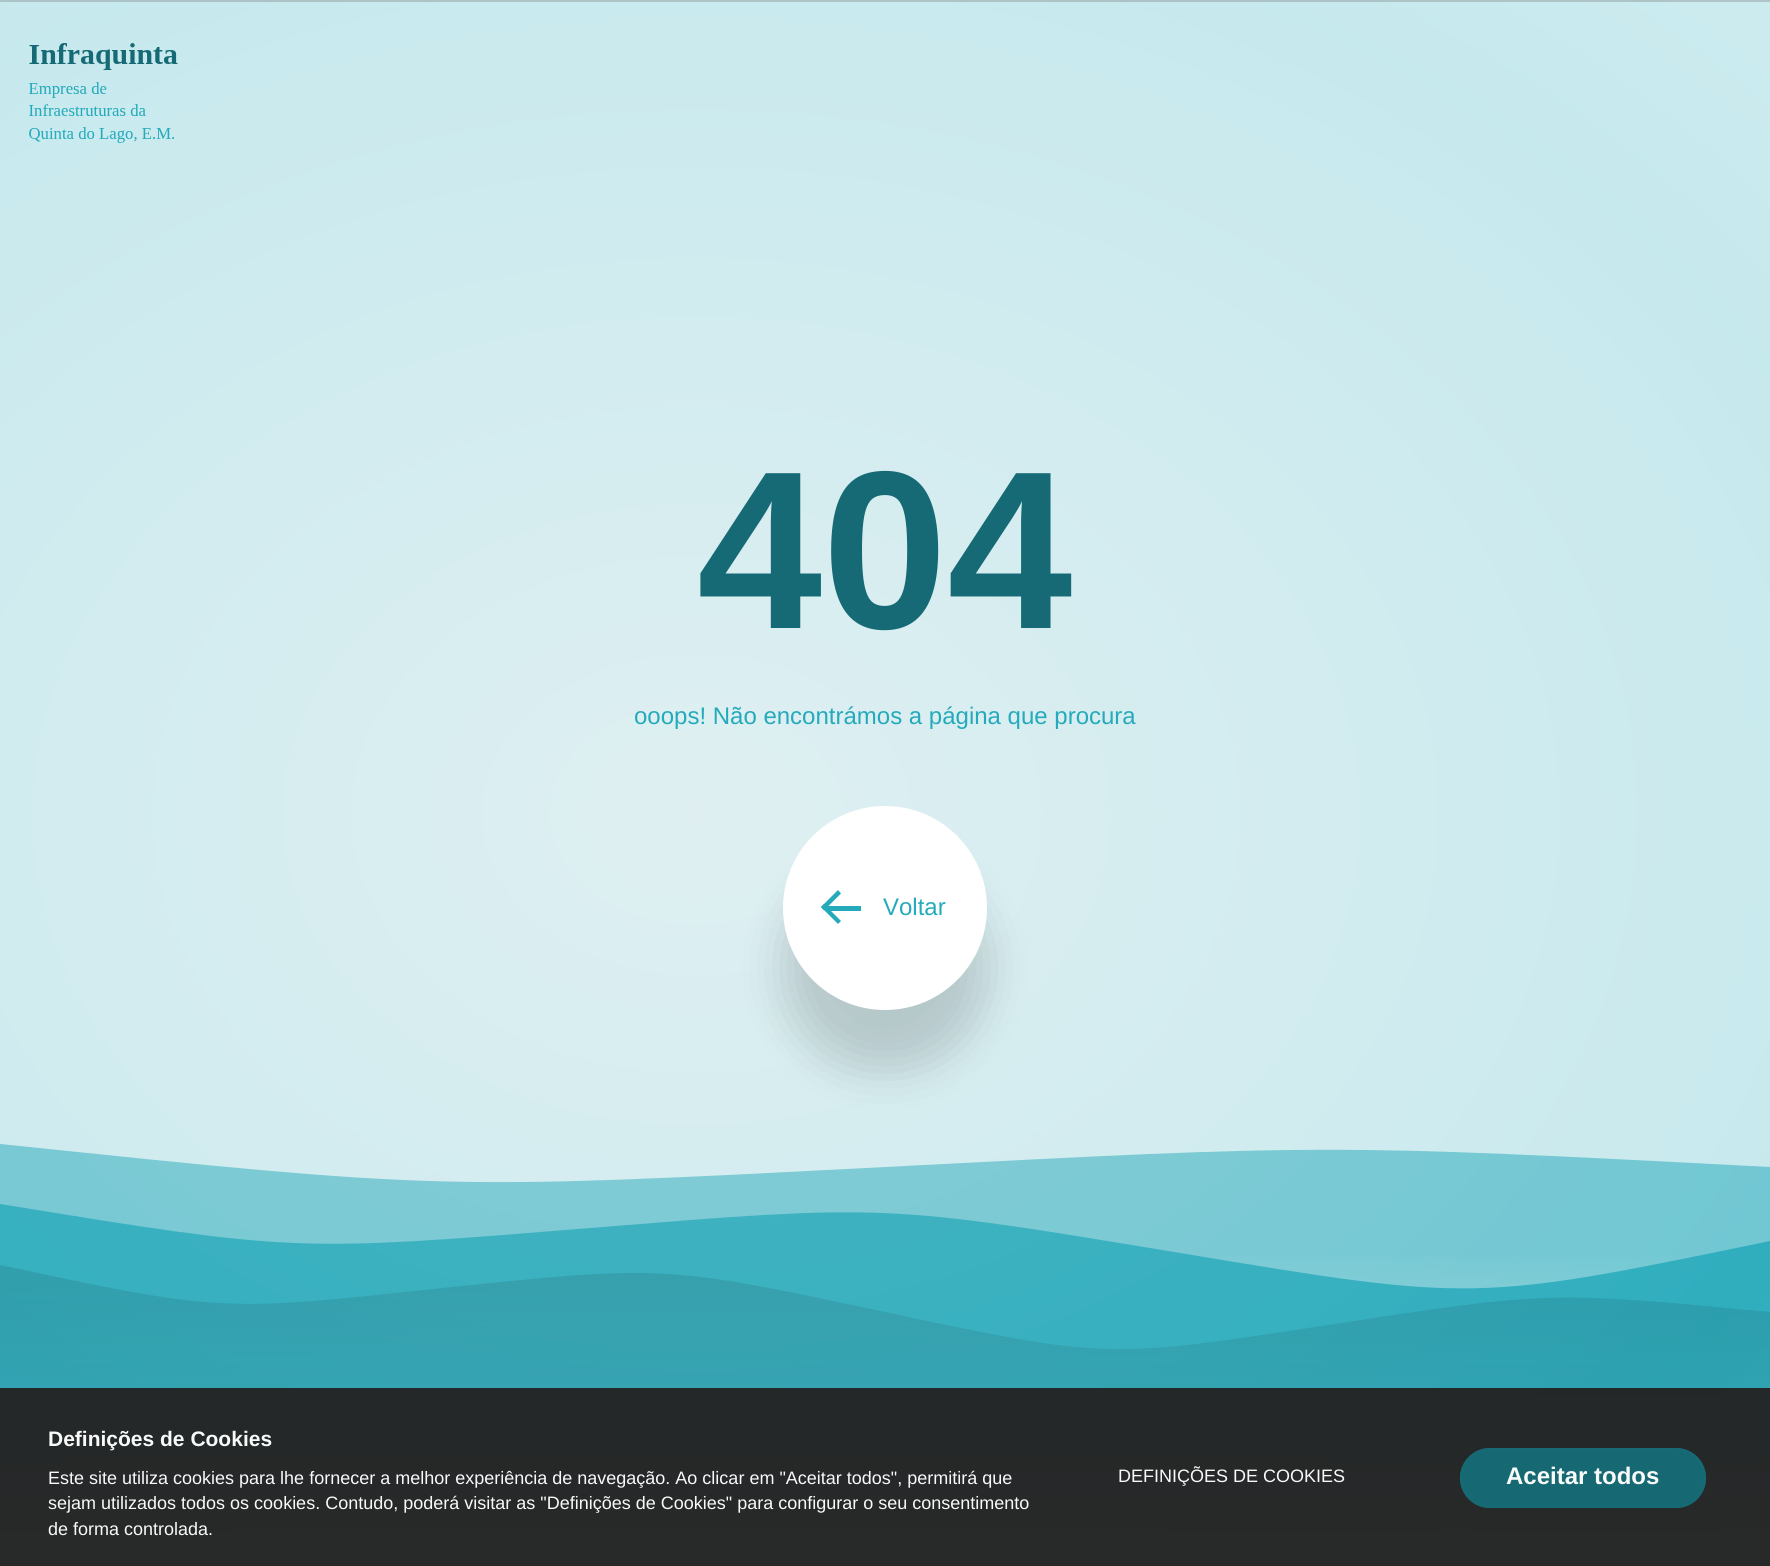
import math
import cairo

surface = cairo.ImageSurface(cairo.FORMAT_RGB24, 1770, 1566)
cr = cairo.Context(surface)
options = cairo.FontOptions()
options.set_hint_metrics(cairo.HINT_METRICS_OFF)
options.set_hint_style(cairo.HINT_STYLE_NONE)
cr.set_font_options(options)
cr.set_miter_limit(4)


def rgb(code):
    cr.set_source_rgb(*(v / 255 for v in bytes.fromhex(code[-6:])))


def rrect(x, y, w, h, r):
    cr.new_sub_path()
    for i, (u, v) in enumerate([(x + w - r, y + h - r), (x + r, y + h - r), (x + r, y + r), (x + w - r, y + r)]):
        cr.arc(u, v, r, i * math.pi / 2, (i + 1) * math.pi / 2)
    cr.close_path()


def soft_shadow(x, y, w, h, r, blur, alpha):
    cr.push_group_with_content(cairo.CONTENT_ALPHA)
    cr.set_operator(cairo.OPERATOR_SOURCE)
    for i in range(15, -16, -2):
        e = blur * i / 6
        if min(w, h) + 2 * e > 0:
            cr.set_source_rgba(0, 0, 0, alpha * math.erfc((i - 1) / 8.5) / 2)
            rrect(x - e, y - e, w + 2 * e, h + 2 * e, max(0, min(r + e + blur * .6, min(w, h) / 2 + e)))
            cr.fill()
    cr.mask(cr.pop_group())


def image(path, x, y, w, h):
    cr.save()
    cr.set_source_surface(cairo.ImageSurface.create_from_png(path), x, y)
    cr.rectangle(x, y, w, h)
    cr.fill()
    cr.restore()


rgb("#ffffff")
cr.paint()
gradient = cairo.LinearGradient(0, 1144, 0, 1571)
gradient.add_color_stop_rgba(0.25, 0.51, 0.808, 0.847, 1)
gradient.add_color_stop_rgba(1, 1, 1, 1, 1)
cr.set_source(gradient)
cr.new_path()
cr.move_to(0, 1144)
cr.curve_to(442, 1190, 442, 1190, 885, 1167)
cr.curve_to(1328, 1144, 1328, 1144, 1770, 1167)
cr.line_to(1770, 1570)
cr.line_to(0, 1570)
cr.close_path()
cr.fill()
gradient = cairo.LinearGradient(0, 1204, 0, 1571)
gradient.add_color_stop_rgba(0.5, 0.145, 0.667, 0.733, 1)
gradient.add_color_stop_rgba(1, 1, 1, 1, 0.5)
cr.set_source(gradient)
cr.new_path()
cr.move_to(0, 1204)
cr.curve_to(295, 1252, 295, 1252, 590, 1228)
cr.curve_to(885, 1204, 885, 1204, 1180, 1253)
cr.curve_to(1475, 1302, 1475, 1302, 1770, 1241)
cr.line_to(1770, 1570)
cr.line_to(0, 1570)
cr.close_path()
cr.fill()
gradient = cairo.LinearGradient(0, 1265, 0, 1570)
gradient.add_color_stop_rgba(0, 0.122, 0.565, 0.624, 1)
gradient.add_color_stop_rgba(0.4, 0.122, 0.565, 0.624, 0.7)
gradient.add_color_stop_rgba(0.6, 0.122, 0.565, 0.624, 0.5)
gradient.add_color_stop_rgba(1, 1, 1, 1, 0.5)
cr.set_source(gradient)
cr.new_path()
cr.move_to(0, 1265)
cr.curve_to(221, 1312, 221, 1312, 442, 1288)
cr.curve_to(664, 1265, 664, 1265, 885, 1312)
cr.curve_to(1106, 1359, 1106, 1359, 1328, 1325)
cr.curve_to(1549, 1291, 1549, 1291, 1770, 1312)
cr.line_to(1770, 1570)
cr.line_to(0, 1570)
cr.close_path()
cr.fill()
gradient = cairo.RadialGradient(0, 0, 0, 0, 0, 1)
gradient.set_matrix(cairo.Matrix(1 / 4355, 0, 0, 1 / 3218, -1 * 697 / 4355, -1 * 814 / 3218))
gradient.add_color_stop_rgba(0, 0.592, 0.8, 0.827, 0.31)
gradient.add_color_stop_rgba(0.28, 0.282, 0.722, 0.776, 0.31)
gradient.add_color_stop_rgba(1, 1, 1, 1, 0.31)
cr.set_source(gradient)
cr.rectangle(0, 0, 1770, 1566)
cr.fill()
cr.rectangle(-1, 1, 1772, 1564)
cr.set_source_rgba(0.439, 0.439, 0.439, 0.31)
cr.stroke()
image("img/1.png", 29, 43, 149, 100)
rgb("#000000")
soft_shadow(783, 866, 204, 204, 102, 22.5, 0.16)
rgb("#ffffff")
cr.arc(885, 908, 99.5, 0, 2 * math.pi)
cr.fill_preserve()
cr.set_line_width(5)
cr.stroke()
rgb("#25aabb")
cr.new_path()
cr.move_to(824, 904)
cr.line_to(841, 921)
cr.line_to(838, 924)
cr.line_to(821, 907)
cr.close_path()
cr.fill()
cr.new_path()
cr.move_to(838, 890)
cr.line_to(841, 893.5)
cr.line_to(824, 910.5)
cr.line_to(821, 907)
cr.close_path()
cr.fill()
cr.rectangle(825, 906, 36, 5)
cr.fill()
cr.set_source_rgba(0.141, 0.141, 0.141, 0.97)
cr.rectangle(0, 1388, 1770, 178)
cr.fill()
rgb("#166873")
rrect(1460, 1448, 246, 60, 30)
cr.fill()
rrect(1461.5, 1449.5, 243, 57, 28.5)
cr.set_source_rgba(0.086, 0.416, 0.459, 0.97)
cr.set_line_width(3)
cr.stroke()
cr.select_font_face("Liberation Sans", cairo.FONT_SLANT_NORMAL, cairo.FONT_WEIGHT_BOLD)
cr.set_font_size(225)
rgb("#166a75")
cr.move_to(697, 628)
cr.show_text("404")
cr.select_font_face("Liberation Sans")
cr.set_font_size(24)
rgb("#25aabb")
cr.move_to(634, 724)
cr.show_text("ooops! Não encontrámos a página que procura")
cr.move_to(883, 915)
cr.show_text("Voltar")
cr.select_font_face("Liberation Sans", cairo.FONT_SLANT_NORMAL, cairo.FONT_WEIGHT_BOLD)
cr.set_font_size(21)
rgb("#f8f9f9")
cr.move_to(48, 1446)
cr.show_text("Definições de Cookies")
cr.select_font_face("Liberation Sans")
cr.set_font_size(18)
for x, y, s in [
    (48, 1484, "Este site utiliza cookies para lhe fornecer a melhor experiência de navegação. Ao clicar em \"Aceitar todos\", permitirá que"),
    (48, 1509, "sejam utilizados todos os cookies. Contudo, poderá visitar as \"Definições de Cookies\" para configurar o seu consentimento"),
    (48, 1535, "de forma controlada."),
    (1118, 1482, "DEFINIÇÕES DE COOKIES"),
]:
    cr.move_to(x, y)
    cr.show_text(s)
cr.select_font_face("Liberation Sans", cairo.FONT_SLANT_NORMAL, cairo.FONT_WEIGHT_BOLD)
cr.set_font_size(24)
cr.move_to(1506, 1484)
cr.show_text("Aceitar todos")
surface.write_to_png("page.png")
